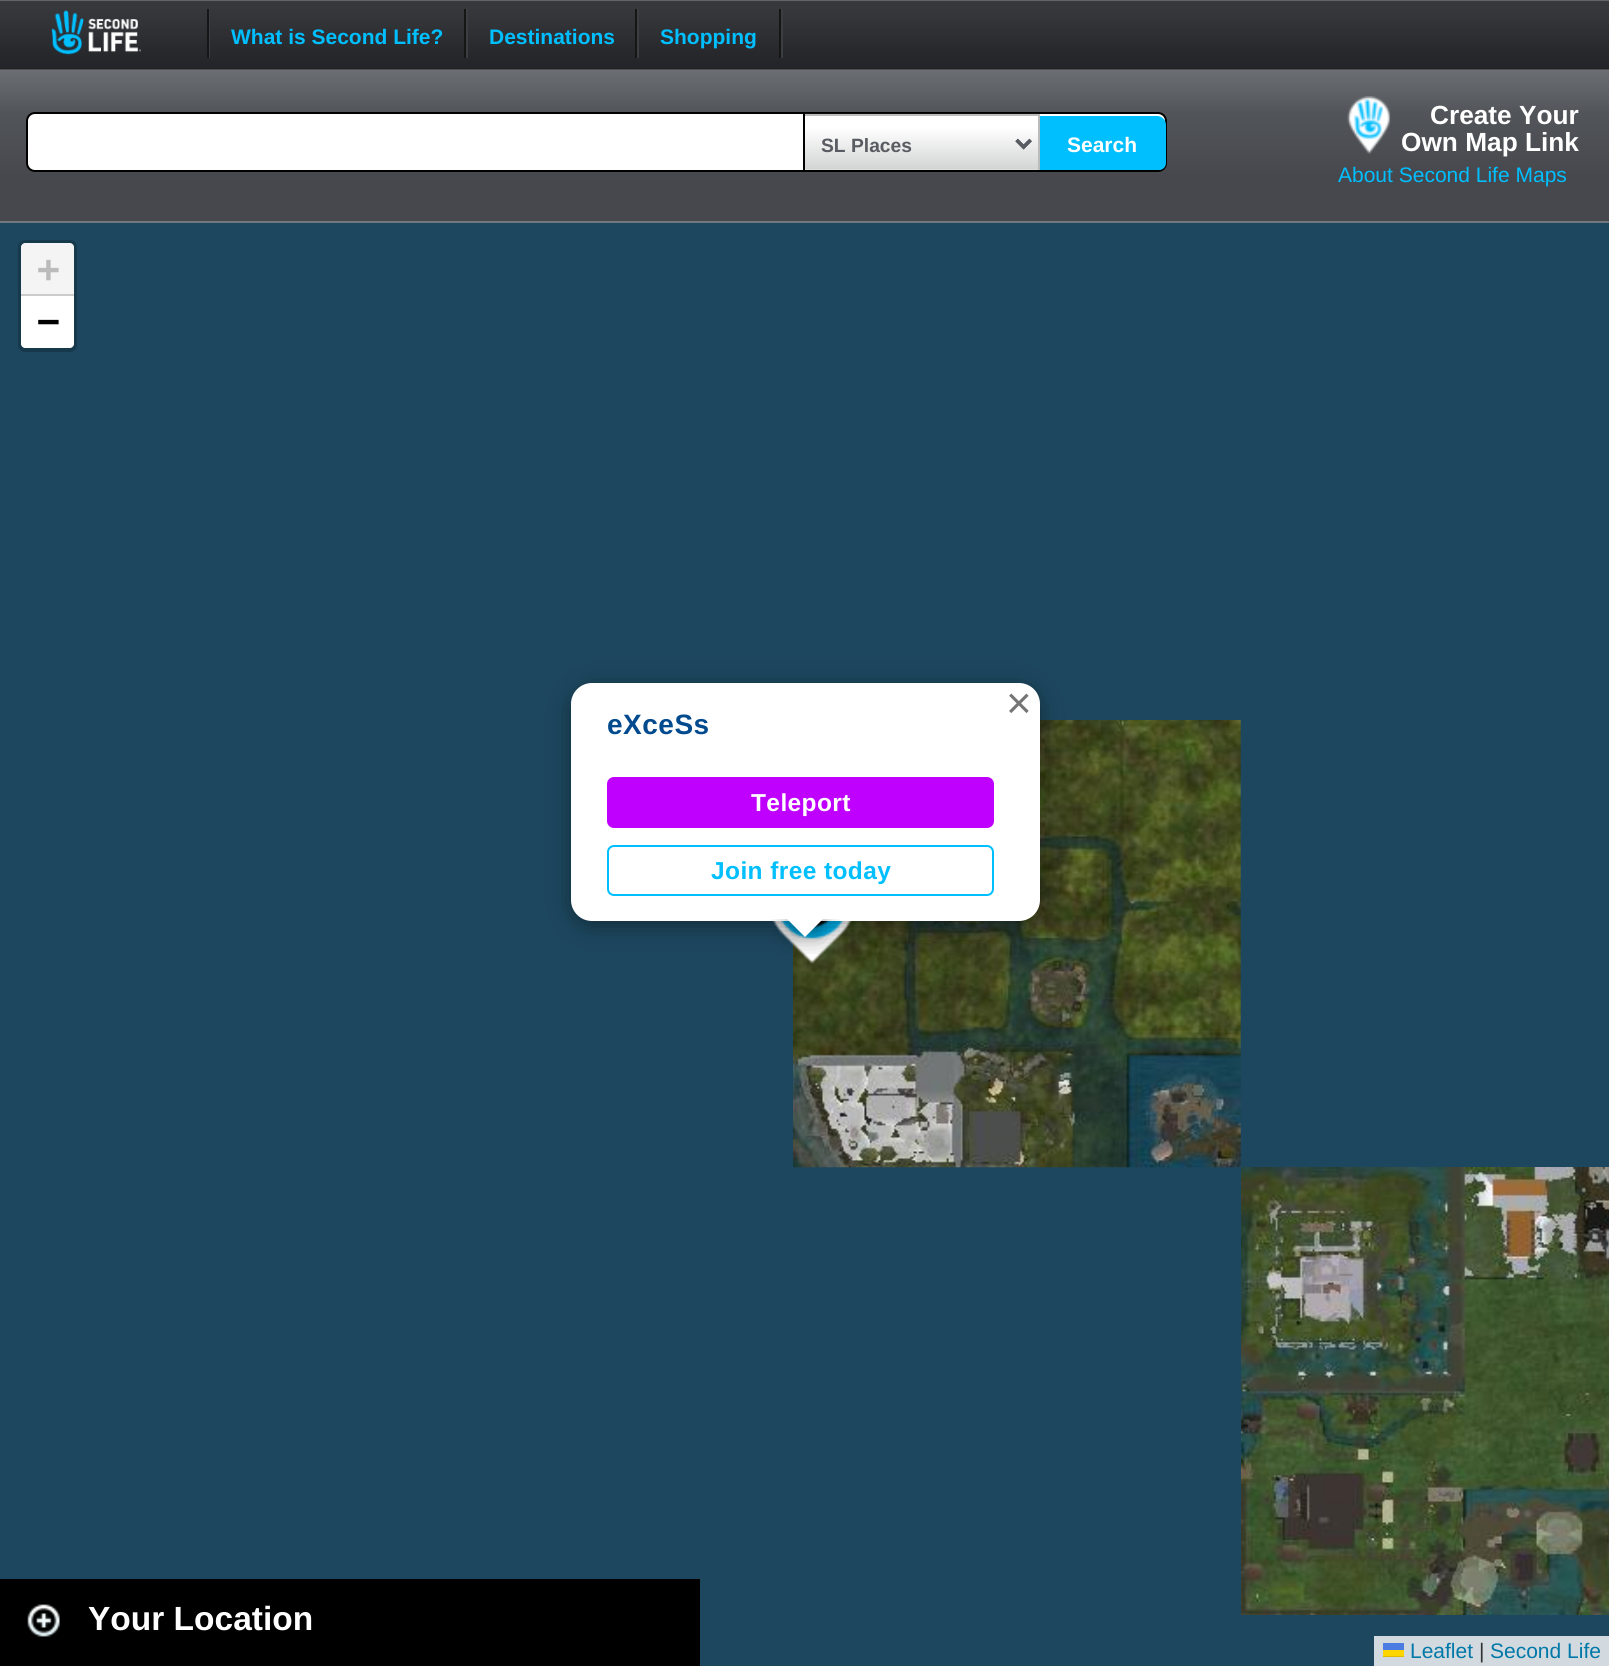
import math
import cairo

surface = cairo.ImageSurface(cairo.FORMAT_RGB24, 1609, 1666)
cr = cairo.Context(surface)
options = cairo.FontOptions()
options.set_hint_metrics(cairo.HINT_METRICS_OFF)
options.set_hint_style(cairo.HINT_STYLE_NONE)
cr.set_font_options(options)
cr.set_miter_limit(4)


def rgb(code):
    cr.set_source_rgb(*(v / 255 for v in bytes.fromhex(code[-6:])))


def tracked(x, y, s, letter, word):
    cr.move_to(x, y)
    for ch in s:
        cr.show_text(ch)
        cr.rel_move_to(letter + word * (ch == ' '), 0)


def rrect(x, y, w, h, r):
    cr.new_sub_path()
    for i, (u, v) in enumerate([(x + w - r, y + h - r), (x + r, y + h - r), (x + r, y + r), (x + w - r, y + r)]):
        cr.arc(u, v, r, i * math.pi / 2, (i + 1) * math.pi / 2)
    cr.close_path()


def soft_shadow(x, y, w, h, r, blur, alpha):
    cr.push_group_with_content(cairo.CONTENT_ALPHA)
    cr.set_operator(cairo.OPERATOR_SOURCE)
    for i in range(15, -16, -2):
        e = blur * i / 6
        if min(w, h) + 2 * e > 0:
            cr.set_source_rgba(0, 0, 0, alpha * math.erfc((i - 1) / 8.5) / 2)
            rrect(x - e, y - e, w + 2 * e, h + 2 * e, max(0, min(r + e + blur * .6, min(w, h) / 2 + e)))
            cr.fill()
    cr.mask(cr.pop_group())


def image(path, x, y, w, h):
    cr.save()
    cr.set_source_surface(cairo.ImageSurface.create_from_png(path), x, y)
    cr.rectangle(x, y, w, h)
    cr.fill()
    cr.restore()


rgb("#ffffff")
cr.paint()
image("img/1.png", 0, 0, 1609, 70)
image("img/2.png", 51, 10, 90, 45)
for x, y, w, h, color in [
    (209, 9, 1, 49, "#3a3e42"),
    (207, 9, 2, 49, "#161616"),
    (466, 9, 2, 49, "#3a3e42"),
    (464, 9, 2, 49, "#161616"),
    (637, 9, 2, 49, "#3a3e42"),
    (635, 9, 2, 49, "#161616"),
    (781, 9, 2, 49, "#3a3e42"),
    (779, 9, 2, 49, "#161616"),
]:
    rgb(color)
    cr.rectangle(x, y, w, h)
    cr.fill()
gradient = cairo.LinearGradient(0, 221, 0, 70)
gradient.add_color_stop_rgba(0.29, 0.278, 0.282, 0.302, 1)
gradient.add_color_stop_rgba(0.71, 0.318, 0.333, 0.349, 1)
gradient.add_color_stop_rgba(1, 0.42, 0.431, 0.451, 1)
cr.set_source(gradient)
cr.rectangle(0, 70, 1609, 151)
cr.fill()
rgb("#72777e")
cr.rectangle(0, 221, 1609, 2)
cr.fill()
rgb("#ffffff")
rrect(27, 113, 1139, 58, 8)
cr.fill_preserve()
rgb("#000000")
cr.stroke()
image("img/3.png", 803, 113, 237, 57)
for x, y, w, h, color in [
    (803, 114, 237, 2, "#bbbbbb"),
    (1038, 114, 2, 56, "#bbbbbb"),
    (803, 114, 2, 56, "#000000"),
]:
    rgb(color)
    cr.rectangle(x, y, w, h)
    cr.fill()
cr.new_path()
cr.move_to(1016.5, 140)
cr.line_to(1023.5, 147)
cr.line_to(1030.5, 140)
rgb("#595c62")
cr.set_line_width(3.5)
cr.stroke()
cr.save()
rrect(28, 114, 1138, 56, 7)
cr.clip()
rgb("#00bfff")
cr.new_path()
cr.move_to(1040, 116)
cr.line_to(1157, 116)
cr.curve_to(1162, 116, 1166, 120, 1166, 125)
cr.line_to(1166, 166)
cr.curve_to(1166, 171, 1162, 175, 1157, 175)
cr.line_to(1040, 175)
cr.close_path()
cr.fill()
cr.restore()
image("img/4.png", 1347, 96, 44, 58)
rgb("#1d475f")
cr.rectangle(0, 223, 1609, 1443)
cr.fill()
rrect(20, 242, 55, 108, 5)
rgb("#17394c")
cr.set_line_width(4)
cr.stroke()
rgb("#f4f4f4")
cr.new_path()
cr.move_to(25, 243)
cr.line_to(70, 243)
cr.curve_to(72, 243, 74, 245, 74, 247)
cr.line_to(74, 296)
cr.line_to(21, 296)
cr.line_to(21, 247)
cr.curve_to(21, 245, 23, 243, 25, 243)
cr.close_path()
cr.fill()
rgb("#cccccc")
cr.rectangle(21, 294, 53, 2)
cr.fill()
rgb("#ffffff")
cr.new_path()
cr.move_to(21, 296)
cr.line_to(74, 296)
cr.line_to(74, 344)
cr.curve_to(74, 346, 72, 348, 70, 348)
cr.line_to(25, 348)
cr.curve_to(23, 348, 21, 346, 21, 344)
cr.close_path()
cr.fill()
for x, y, w, h, color in [
    (1374, 1636, 235, 30, "#d2dadf"),
    (1383, 1643, 21, 7, "#4c7be1"),
    (1383, 1650, 21, 6, "#ffd500"),
    (1383, 1656, 21, 1, "#e0bc00"),
]:
    rgb(color)
    cr.rectangle(x, y, w, h)
    cr.fill()
image("img/5.png", 793, 720, 448, 448)
image("img/7.png", 772, 921, 80, 43)
rgb("#000000")
soft_shadow(571, 688, 469, 238, 21, 12, 0.4)
rgb("#ffffff")
rrect(571, 683, 469, 238, 21)
cr.fill()
rgb("#bf00ff")
rrect(607, 777, 387, 51, 7)
cr.fill()
rrect(608, 846, 385, 49, 6)
rgb("#00bfff")
cr.set_line_width(2)
cr.stroke()
cr.save()
cr.rectangle(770, 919, 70, 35)
cr.clip()
rgb("#000000")
soft_shadow(791, 907, 30, 29, 0, 12.5, 0.4)
cr.restore()
cr.save()
cr.rectangle(770, 919, 70, 35)
cr.clip()
rgb("#ffffff")
cr.new_path()
cr.move_to(805, 895)
cr.line_to(826, 916)
cr.line_to(805, 937)
cr.line_to(784, 916)
cr.close_path()
cr.fill()
cr.restore()
image("img/6.png", 1241, 1167, 368, 448)
rgb("#000000")
cr.rectangle(0, 1579, 700, 87)
cr.fill()
image("img/8.png", 27, 1604, 33, 33)
cr.select_font_face("Liberation Sans", cairo.FONT_SLANT_NORMAL, cairo.FONT_WEIGHT_BOLD)
cr.set_font_size(21)
rgb("#00bfff")
for x, y, s in [
    (231, 44, "What is Second Life?"),
    (489, 44, "Destinations"),
    (660, 44, "Shopping"),
]:
    cr.move_to(x, y)
    cr.show_text(s)
cr.set_font_size(19.25)
rgb("#595c62")
cr.move_to(821, 152)
cr.show_text("SL Places")
cr.set_font_size(21)
rgb("#ffffff")
cr.move_to(1067, 152)
cr.show_text("Search")
cr.set_font_size(26.25)
cr.move_to(1430, 124)
cr.show_text("Create Your")
cr.move_to(1401, 151)
cr.show_text("Own Map Link")
cr.select_font_face("Liberation Sans")
cr.set_font_size(21)
rgb("#00bfff")
cr.move_to(1338, 182)
cr.show_text("About Second Life Maps")
cr.select_font_face("DejaVu Sans Mono", cairo.FONT_SLANT_NORMAL, cairo.FONT_WEIGHT_BOLD)
cr.set_font_size(38)
rgb("#bbbbbb")
cr.move_to(37, 282)
cr.show_text("+")
rgb("#000000")
cr.move_to(37, 334)
cr.show_text("−")
cr.select_font_face("Liberation Sans")
cr.set_font_size(21)
rgb("#0078a8")
cr.move_to(1410, 1658)
cr.show_text("Leaflet")
rgb("#333333")
cr.move_to(1479, 1658)
cr.show_text("|")
rgb("#0078a8")
cr.move_to(1490, 1658)
cr.show_text("Second Life")
cr.set_font_size(44)
rgb("#757575")
cr.move_to(1006, 718)
cr.show_text("×")
cr.select_font_face("Liberation Sans", cairo.FONT_SLANT_NORMAL, cairo.FONT_WEIGHT_BOLD)
cr.set_font_size(28)
rgb("#014a8e")
tracked(607, 734, "eXceSs", 0.5, 0)
cr.set_font_size(24.5)
rgb("#ffffff")
tracked(751, 811, "Teleport", 0.4, 0)
rgb("#00bfff")
tracked(711, 879, "Join free today", 0.4, 0)
cr.set_font_size(33.5)
rgb("#ffffff")
cr.move_to(88, 1630)
cr.show_text("Your Location")
surface.write_to_png("page.png")
